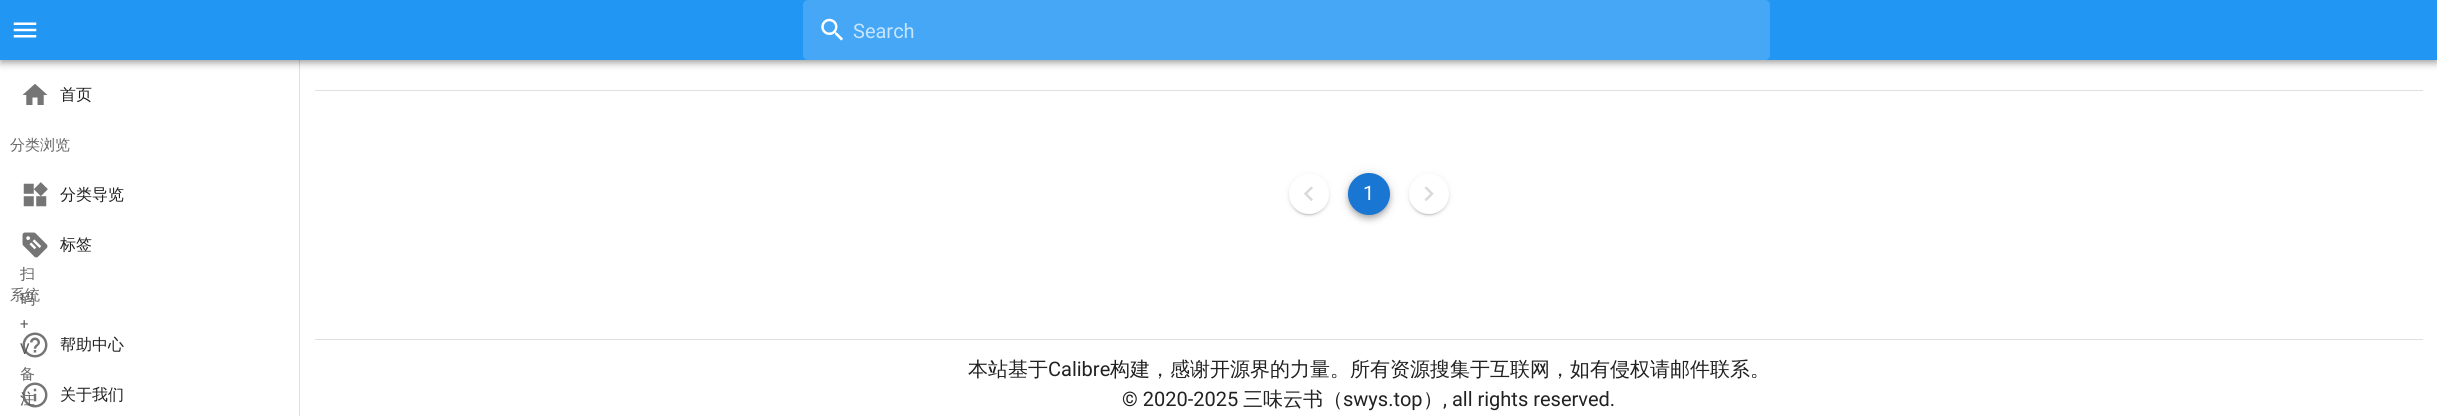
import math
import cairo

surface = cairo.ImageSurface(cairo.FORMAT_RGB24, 2437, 416)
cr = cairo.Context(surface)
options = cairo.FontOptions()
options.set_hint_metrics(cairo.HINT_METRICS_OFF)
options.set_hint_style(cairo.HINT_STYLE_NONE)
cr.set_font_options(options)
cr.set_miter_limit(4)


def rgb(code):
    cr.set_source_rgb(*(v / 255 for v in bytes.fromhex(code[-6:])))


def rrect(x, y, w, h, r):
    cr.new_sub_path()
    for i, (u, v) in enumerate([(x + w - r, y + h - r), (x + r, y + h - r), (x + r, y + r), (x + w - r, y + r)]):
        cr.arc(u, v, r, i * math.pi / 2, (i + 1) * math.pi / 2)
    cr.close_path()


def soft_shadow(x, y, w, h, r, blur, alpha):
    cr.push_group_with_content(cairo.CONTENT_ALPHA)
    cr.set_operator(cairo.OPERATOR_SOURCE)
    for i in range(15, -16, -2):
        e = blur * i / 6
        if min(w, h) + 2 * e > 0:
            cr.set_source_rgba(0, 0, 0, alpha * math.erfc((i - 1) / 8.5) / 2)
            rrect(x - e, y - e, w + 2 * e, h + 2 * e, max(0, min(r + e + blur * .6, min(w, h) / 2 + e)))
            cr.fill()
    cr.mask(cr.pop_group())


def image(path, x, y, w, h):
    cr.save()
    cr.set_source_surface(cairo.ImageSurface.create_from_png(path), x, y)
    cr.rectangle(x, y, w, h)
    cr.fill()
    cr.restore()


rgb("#ffffff")
cr.paint()
rgb("#e0e0e0")
cr.rectangle(299, 60, 1, 356)
cr.fill()
rgb("#000000")
soft_shadow(0, 1, 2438, 60, 0, 6, 0.12)
soft_shadow(0, 5, 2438, 60, 0, 3, 0.14)
soft_shadow(1, 4, 2435, 57, 0, 2.5, 0.2)
rgb("#2196f3")
cr.rectangle(0, 0, 2437, 60)
cr.fill()
image("img/1.png", 13, 22, 24, 16)
rgb("#45a7f5")
rrect(803, 0, 967, 60, 5)
cr.fill()
image("img/2.png", 821, 18, 22, 23)
image("img/3.png", 22, 84, 26, 21)
image("img/4.png", 23, 182, 25, 25)
image("img/5.png", 22, 232, 26, 26)
image("img/6.png", 22, 332, 26, 26)
image("img/7.png", 22, 382, 26, 26)
rgb("#e0e0e0")
cr.rectangle(315, 90, 2108, 1)
cr.fill()
rgb("#666666")
soft_shadow(1289, 175, 40, 40, 20, 3, 0.12)
soft_shadow(1289, 176, 40, 40, 20, 1, 0.14)
soft_shadow(1291, 180, 35, 35, 17.5, 0.5, 0.2)
rgb("#ffffff")
cr.arc(1309, 194, 20, 0, 2 * math.pi)
cr.fill()
image("img/8.png", 1304, 186, 9, 15)
cr.set_source_rgba(1, 1, 1, 0.54)
cr.arc(1309.5, 193.5, 19.5, 0, 2 * math.pi)
cr.fill()
rgb("#000000")
soft_shadow(1348, 174, 42, 42, 21, 6, 0.12)
soft_shadow(1348, 178, 42, 42, 21, 3, 0.14)
soft_shadow(1349, 176, 40, 40, 20, 2.5, 0.2)
rgb("#1976d2")
cr.arc(1369, 194, 21, 0, 2 * math.pi)
cr.fill()
rgb("#666666")
soft_shadow(1409, 175, 40, 40, 20, 3, 0.12)
soft_shadow(1409, 176, 40, 40, 20, 1, 0.14)
soft_shadow(1411, 180, 35, 35, 17.5, 0.5, 0.2)
rgb("#ffffff")
cr.arc(1429, 194, 20, 0, 2 * math.pi)
cr.fill()
image("img/9.png", 1424, 186, 10, 15)
cr.set_source_rgba(1, 1, 1, 0.54)
cr.arc(1428.5, 193.5, 19.5, 0, 2 * math.pi)
cr.fill()
rgb("#e0e0e0")
cr.rectangle(315, 339, 2108, 1)
cr.fill()
cr.select_font_face("Roboto")
cr.set_font_size(20)
rgb("#c7e5fc")
cr.move_to(853, 38)
cr.show_text("Search")
cr.select_font_face("WenQuanYi Zen Hei Medium")
cr.set_font_size(16)
rgb("#212121")
cr.move_to(60, 100)
cr.show_text("首页")
cr.set_font_size(15)
rgb("#666666")
cr.move_to(10, 150)
cr.show_text("分类浏览")
cr.set_font_size(16)
rgb("#212121")
cr.move_to(60, 200)
cr.show_text("分类导览")
cr.move_to(60, 250)
cr.show_text("标签")
cr.set_font_size(15)
rgb("#666666")
cr.move_to(20, 279)
cr.show_text("扫")
cr.select_font_face("Roboto")
cr.move_to(20, 329)
cr.show_text("+")
rgb("#575757")
cr.move_to(20, 354)
cr.show_text("V")
cr.select_font_face("WenQuanYi Zen Hei Medium")
rgb("#666666")
cr.move_to(20, 379)
cr.show_text("备")
rgb("#575757")
cr.move_to(20, 404)
cr.show_text("注")
rgb("#666666")
cr.move_to(10, 300)
cr.show_text("系统")
rgb("#575757")
cr.move_to(20, 304)
cr.show_text("码")
cr.set_font_size(16)
rgb("#212121")
cr.move_to(60, 350)
cr.show_text("帮助中心")
cr.move_to(60, 400)
cr.show_text("关于我们")
cr.select_font_face("Roboto")
cr.set_font_size(20)
rgb("#ffffff")
cr.move_to(1363, 200)
cr.show_text("1")
cr.select_font_face("WenQuanYi Zen Hei Medium")
rgb("#212121")
cr.move_to(968, 376)
cr.show_text("本站基于")
cr.select_font_face("Roboto")
cr.move_to(1048, 376)
cr.show_text("Calibre")
cr.select_font_face("WenQuanYi Zen Hei Medium")
cr.move_to(1110, 376)
cr.show_text("构建，感谢开源界的力量。所有资源搜集于互联网，如有侵权请邮件联系。")
cr.select_font_face("Roboto")
cr.move_to(1122, 406)
cr.show_text("© 2020-2025")
cr.select_font_face("WenQuanYi Zen Hei Medium")
cr.move_to(1243, 406)
cr.show_text("三味云书（")
cr.select_font_face("Roboto")
cr.move_to(1343, 406)
cr.show_text("swys.top")
cr.select_font_face("WenQuanYi Zen Hei Medium")
cr.move_to(1423, 406)
cr.show_text("）")
cr.select_font_face("Roboto")
cr.move_to(1443, 406)
cr.show_text(", all rights reserved.")
surface.write_to_png("page.png")
